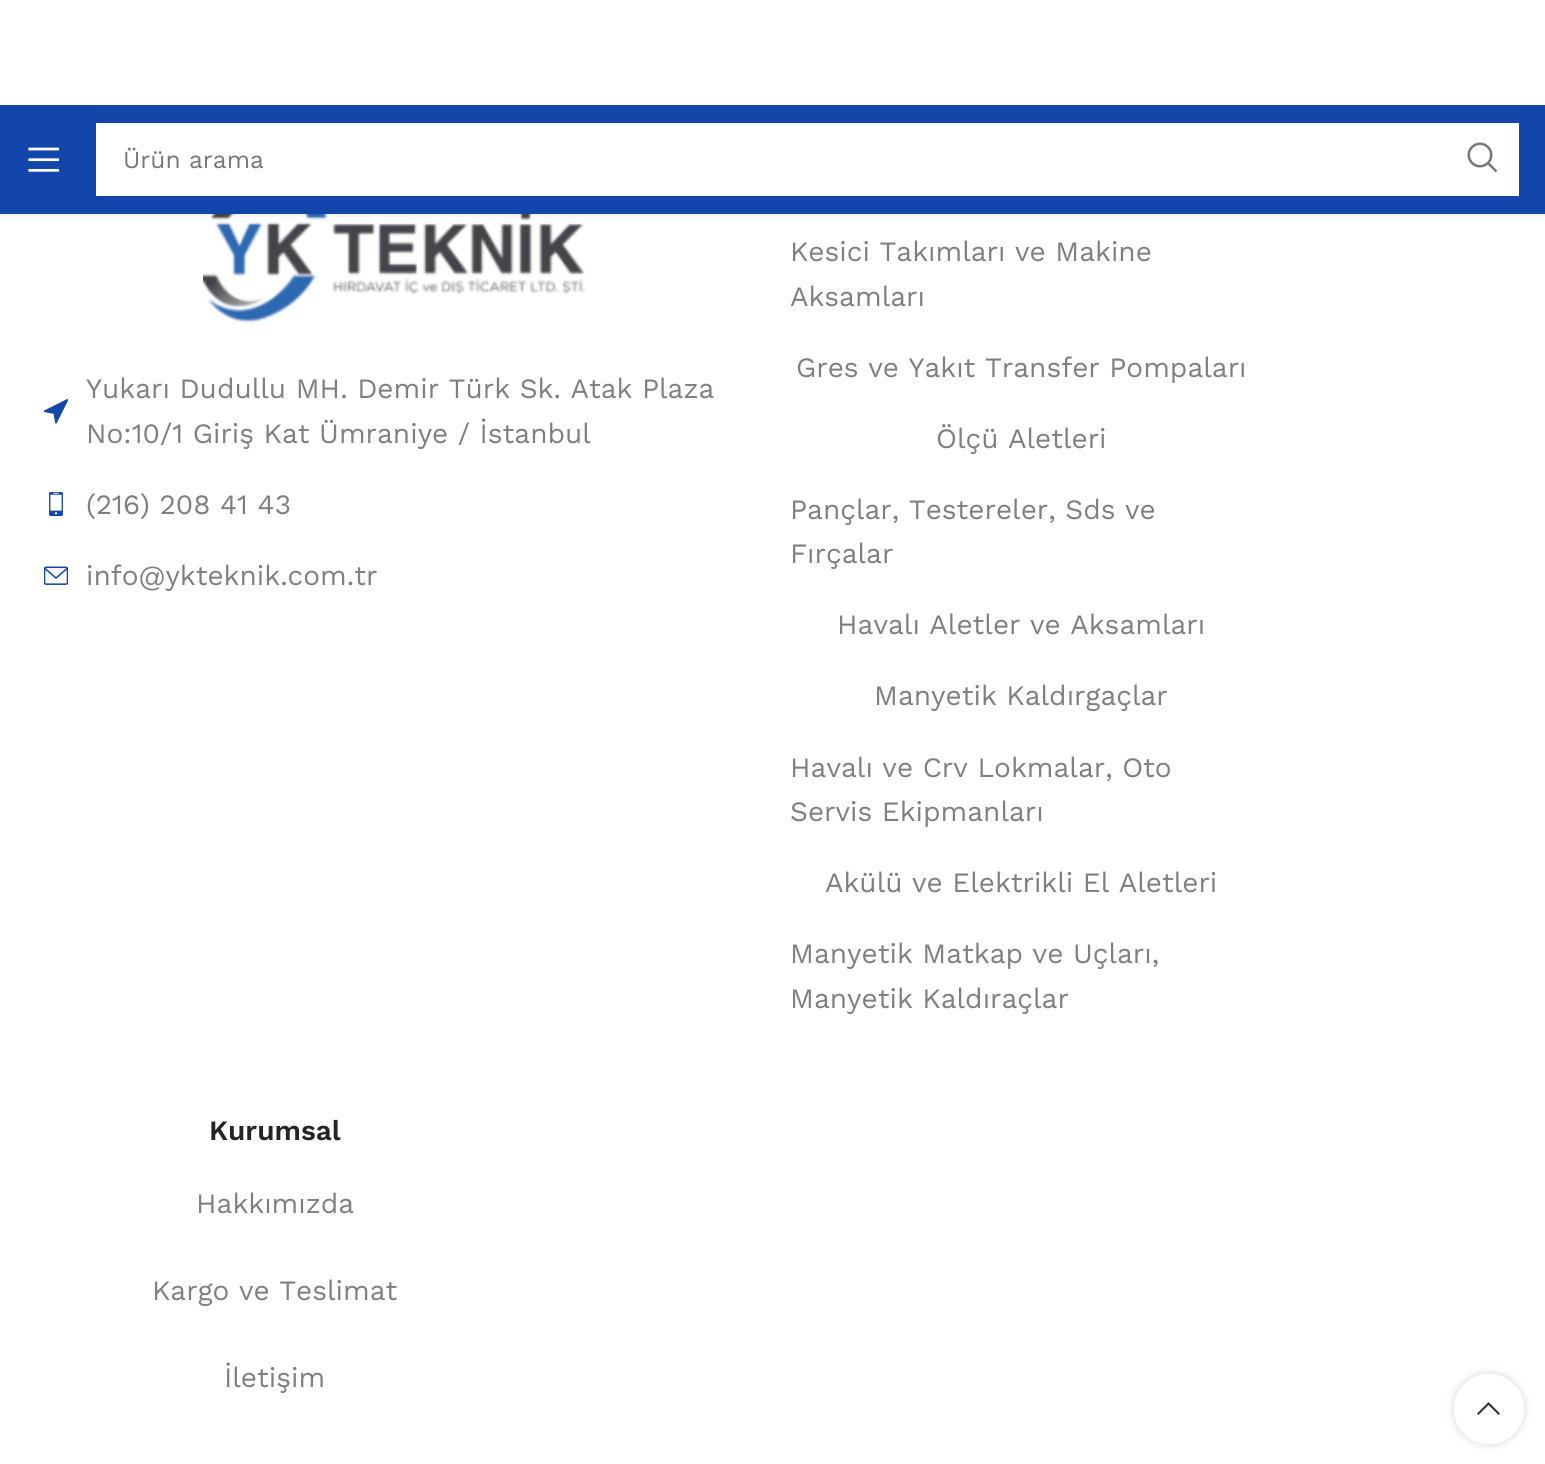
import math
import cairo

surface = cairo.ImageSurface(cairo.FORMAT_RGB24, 1545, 1464)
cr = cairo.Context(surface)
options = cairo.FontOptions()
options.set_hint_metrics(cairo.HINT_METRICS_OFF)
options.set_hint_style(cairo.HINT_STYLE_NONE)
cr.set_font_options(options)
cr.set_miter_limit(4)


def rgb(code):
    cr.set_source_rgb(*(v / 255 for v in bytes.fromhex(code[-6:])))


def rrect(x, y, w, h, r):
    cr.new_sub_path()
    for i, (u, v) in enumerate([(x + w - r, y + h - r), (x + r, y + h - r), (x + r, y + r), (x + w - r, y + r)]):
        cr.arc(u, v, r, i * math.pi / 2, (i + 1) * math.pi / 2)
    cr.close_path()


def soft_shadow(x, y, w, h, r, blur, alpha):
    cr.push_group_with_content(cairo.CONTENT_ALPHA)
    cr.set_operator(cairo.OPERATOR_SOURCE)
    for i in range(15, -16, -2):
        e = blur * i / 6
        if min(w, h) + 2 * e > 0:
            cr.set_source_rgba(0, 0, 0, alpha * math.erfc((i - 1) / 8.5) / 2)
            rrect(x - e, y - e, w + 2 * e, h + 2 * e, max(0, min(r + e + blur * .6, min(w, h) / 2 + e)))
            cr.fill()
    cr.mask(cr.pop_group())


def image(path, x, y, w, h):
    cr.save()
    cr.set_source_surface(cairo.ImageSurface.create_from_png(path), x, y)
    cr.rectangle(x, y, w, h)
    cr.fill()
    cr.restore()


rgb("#ffffff")
cr.paint()
image("img/3.png", 203, 214, 384, 109)
rgb("#000000")
soft_shadow(0, 2, 1545, 213, 0, 2.5, 0.1)
rgb("#ffffff")
cr.rectangle(0, 0, 1545, 105)
cr.fill()
rgb("#1246ab")
cr.rectangle(0, 105, 1545, 109)
cr.fill()
image("img/1.png", 28, 147, 32, 25)
rgb("#ffffff")
cr.rectangle(96, 123, 1423, 73)
cr.fill()
image("img/2.png", 1467, 142, 31, 31)
image("img/4.png", 44, 399, 24, 25)
image("img/5.png", 49, 492, 14, 24)
image("img/6.png", 44, 566, 24, 19)
cr.save()
cr.set_fill_rule(cairo.FILL_RULE_EVEN_ODD)
cr.new_path()
cr.move_to(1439, 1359)
cr.line_to(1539, 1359)
cr.line_to(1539, 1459)
cr.line_to(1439, 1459)
cr.close_path()
cr.move_to(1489, 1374)
cr.curve_to(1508.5, 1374, 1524, 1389.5, 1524, 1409)
cr.curve_to(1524, 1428.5, 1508.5, 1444, 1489, 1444)
cr.curve_to(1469.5, 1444, 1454, 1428.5, 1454, 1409)
cr.curve_to(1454, 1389.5, 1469.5, 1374, 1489, 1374)
cr.close_path()
cr.clip()
rgb("#000000")
soft_shadow(1454, 1374, 70, 70, 35, 4.5, 0.17)
cr.restore()
cr.set_source_rgba(1, 1, 1, 0.9)
cr.arc(1489, 1409, 35, 0, 2 * math.pi)
cr.fill()
rgb("#333333")
cr.new_path()
cr.move_to(1498.5, 1415)
cr.line_to(1500, 1413.5)
cr.line_to(1488.5, 1402)
cr.line_to(1477, 1413.5)
cr.line_to(1478.5, 1415)
cr.line_to(1488.5, 1405)
cr.close_path()
cr.fill()
cr.select_font_face("Work Sans")
cr.set_font_size(24.5)
rgb("#777777")
cr.move_to(123, 168)
cr.show_text("Ürün arama")
cr.set_font_size(28)
rgb("#837e7e")
for x, y, s in [
    (86, 398, "Yukarı Dudullu MH. Demir Türk Sk. Atak Plaza"),
    (86, 443, "No:10/1 Giriş Kat Ümraniye / İstanbul"),
    (86, 514, "(216) 208 41 43"),
    (86, 585, "info@ykteknik.com.tr"),
    (790, 261, "Kesici Takımları ve Makine"),
    (790, 306, "Aksamları"),
    (796, 377, "Gres ve Yakıt Transfer Pompaları"),
    (936, 448, "Ölçü Aletleri"),
    (790, 519, "Pançlar, Testereler, Sds ve"),
    (790, 563, "Fırçalar"),
    (837, 634, "Havalı Aletler ve Aksamları"),
    (874, 705, "Manyetik Kaldırgaçlar"),
    (790, 777, "Havalı ve Crv Lokmalar, Oto"),
    (790, 821, "Servis Ekipmanları"),
    (825, 892, "Akülü ve Elektrikli El Aletleri"),
    (790, 963, "Manyetik Matkap ve Uçları,"),
    (790, 1008, "Manyetik Kaldıraçlar"),
]:
    cr.move_to(x, y)
    cr.show_text(s)
cr.select_font_face("Work Sans SemiBold")
rgb("#242424")
cr.move_to(209, 1140)
cr.show_text("Kurumsal")
cr.select_font_face("Work Sans")
rgb("#837e7e")
for x, y, s in [
    (196, 1213, "Hakkımızda"),
    (152, 1300, "Kargo ve Teslimat"),
    (224, 1387, "İletişim"),
]:
    cr.move_to(x, y)
    cr.show_text(s)
surface.write_to_png("page.png")
